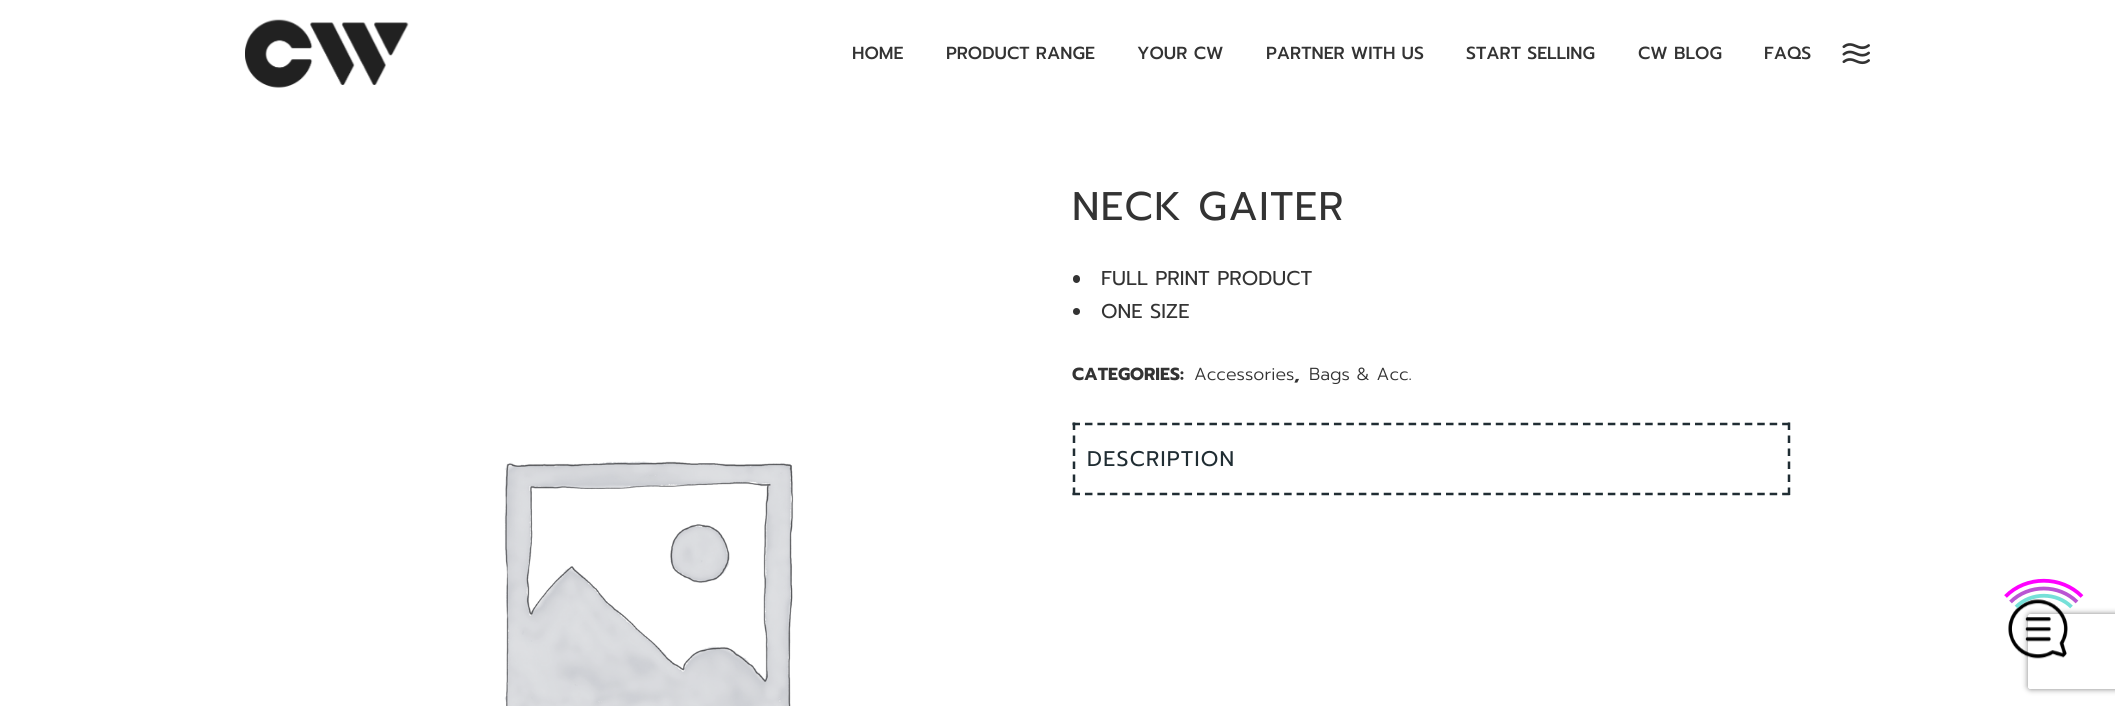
import math
import cairo

surface = cairo.ImageSurface(cairo.FORMAT_RGB24, 2115, 706)
cr = cairo.Context(surface)
options = cairo.FontOptions()
options.set_hint_metrics(cairo.HINT_METRICS_OFF)
options.set_hint_style(cairo.HINT_STYLE_NONE)
cr.set_font_options(options)
cr.set_miter_limit(4)


def rgb(code):
    cr.set_source_rgb(*(v / 255 for v in bytes.fromhex(code[-6:])))


def tracked(x, y, s, letter, word):
    cr.move_to(x, y)
    for ch in s:
        cr.show_text(ch)
        cr.rel_move_to(letter + word * (ch == ' '), 0)


def rrect(x, y, w, h, r):
    cr.new_sub_path()
    for i, (u, v) in enumerate([(x + w - r, y + h - r), (x + r, y + h - r), (x + r, y + r), (x + w - r, y + r)]):
        cr.arc(u, v, r, i * math.pi / 2, (i + 1) * math.pi / 2)
    cr.close_path()


def soft_shadow(x, y, w, h, r, blur, alpha):
    cr.push_group_with_content(cairo.CONTENT_ALPHA)
    cr.set_operator(cairo.OPERATOR_SOURCE)
    for i in range(15, -16, -2):
        e = blur * i / 6
        if min(w, h) + 2 * e > 0:
            cr.set_source_rgba(0, 0, 0, alpha * math.erfc((i - 1) / 8.5) / 2)
            rrect(x - e, y - e, w + 2 * e, h + 2 * e, max(0, min(r + e + blur * .6, min(w, h) / 2 + e)))
            cr.fill()
    cr.mask(cr.pop_group())


def image(path, x, y, w, h):
    cr.save()
    cr.set_source_surface(cairo.ImageSurface.create_from_png(path), x, y)
    cr.rectangle(x, y, w, h)
    cr.fill()
    cr.restore()


rgb("#ffffff")
cr.paint()
image("img/1.png", 245, 19, 164, 69)
image("img/2.png", 1842, 43, 28, 22)
rgb("#333333")
rrect(1073, 275, 7, 8, 3.5)
cr.fill()
cr.arc(1076.5, 311.5, 3.5, 0, 2 * math.pi)
cr.fill()
cr.new_path()
cr.move_to(1072.5, 424)
cr.line_to(1790, 424)
rgb("#202d33")
cr.set_line_width(2.5)
cr.set_dash([7.5, 4.95])
cr.stroke()
cr.new_path()
cr.move_to(1789, 422.5)
cr.line_to(1789, 495)
cr.set_dash([7.5, 5.5])
cr.stroke()
cr.new_path()
cr.move_to(1072.5, 494)
cr.line_to(1790, 494)
cr.set_dash([7.5, 4.95])
cr.stroke()
cr.new_path()
cr.move_to(1074, 422.5)
cr.line_to(1074, 495)
cr.set_dash([7.5, 5.5])
cr.stroke()
image("img/3.png", 504, 461, 290, 245)
cr.save()
cr.set_fill_rule(cairo.FILL_RULE_EVEN_ODD)
cr.new_path()
cr.move_to(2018, 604)
cr.line_to(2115, 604)
cr.line_to(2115, 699)
cr.line_to(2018, 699)
cr.close_path()
cr.move_to(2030.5, 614)
cr.line_to(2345.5, 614)
cr.curve_to(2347, 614, 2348, 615, 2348, 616.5)
cr.line_to(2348, 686.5)
cr.curve_to(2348, 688, 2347, 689, 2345.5, 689)
cr.line_to(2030.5, 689)
cr.curve_to(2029, 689, 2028, 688, 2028, 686.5)
cr.line_to(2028, 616.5)
cr.curve_to(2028, 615, 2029, 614, 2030.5, 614)
cr.close_path()
cr.clip()
rgb("#808080")
soft_shadow(2028, 614, 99, 75, 2.5, 3, 1)
cr.restore()
image("img/4.png", 2008, 599, 60, 60)
cr.new_path()
cr.move_to(2016, 607)
cr.curve_to(2031, 592, 2056.5, 592, 2071.5, 607)
rgb("#75e0d8")
cr.set_line_width(3.8)
cr.set_dash([])
cr.stroke()
cr.new_path()
cr.move_to(2010.5, 602)
cr.curve_to(2028.5, 584, 2059, 584, 2077, 602)
rgb("#ba55d3")
cr.stroke()
cr.new_path()
cr.move_to(2005.5, 596.5)
cr.curve_to(2026, 575.5, 2061.5, 575.5, 2082, 596.5)
rgb("#ff00ff")
cr.stroke()
cr.select_font_face("Prompt Medium")
cr.set_font_size(17.5)
rgb("#333333")
for x, y, s in [
    (852, 59, "HOME"),
    (946, 59, "PRODUCT RANGE"),
    (1137, 59, "YOUR CW"),
    (1266, 59, "PARTNER WITH US"),
    (1466, 59, "START SELLING"),
    (1638, 59, "CW BLOG"),
    (1764, 59, "FAQS"),
]:
    cr.move_to(x, y)
    cr.show_text(s)
cr.select_font_face("Prompt")
cr.set_font_size(40)
tracked(1072, 220, "NECK GAITER", 1.25, 0)
cr.set_font_size(20)
cr.move_to(1101, 285)
cr.show_text("FULL PRINT PRODUCT")
cr.move_to(1101, 318)
cr.show_text("ONE SIZE")
cr.select_font_face("Prompt", cairo.FONT_SLANT_NORMAL, cairo.FONT_WEIGHT_BOLD)
cr.set_font_size(17.5)
cr.move_to(1072, 380)
cr.show_text("CATEGORIES:")
cr.select_font_face("Prompt Light")
cr.move_to(1194, 380)
cr.show_text("Accessories")
cr.select_font_face("Prompt", cairo.FONT_SLANT_NORMAL, cairo.FONT_WEIGHT_BOLD)
cr.move_to(1294, 380)
cr.show_text(",")
cr.select_font_face("Prompt Light")
cr.move_to(1309, 380)
cr.show_text("Bags & Acc.")
cr.select_font_face("Prompt")
cr.set_font_size(21.25)
rgb("#202d33")
tracked(1087, 466, "DESCRIPTION", 1.25, 0)
surface.write_to_png("page.png")
